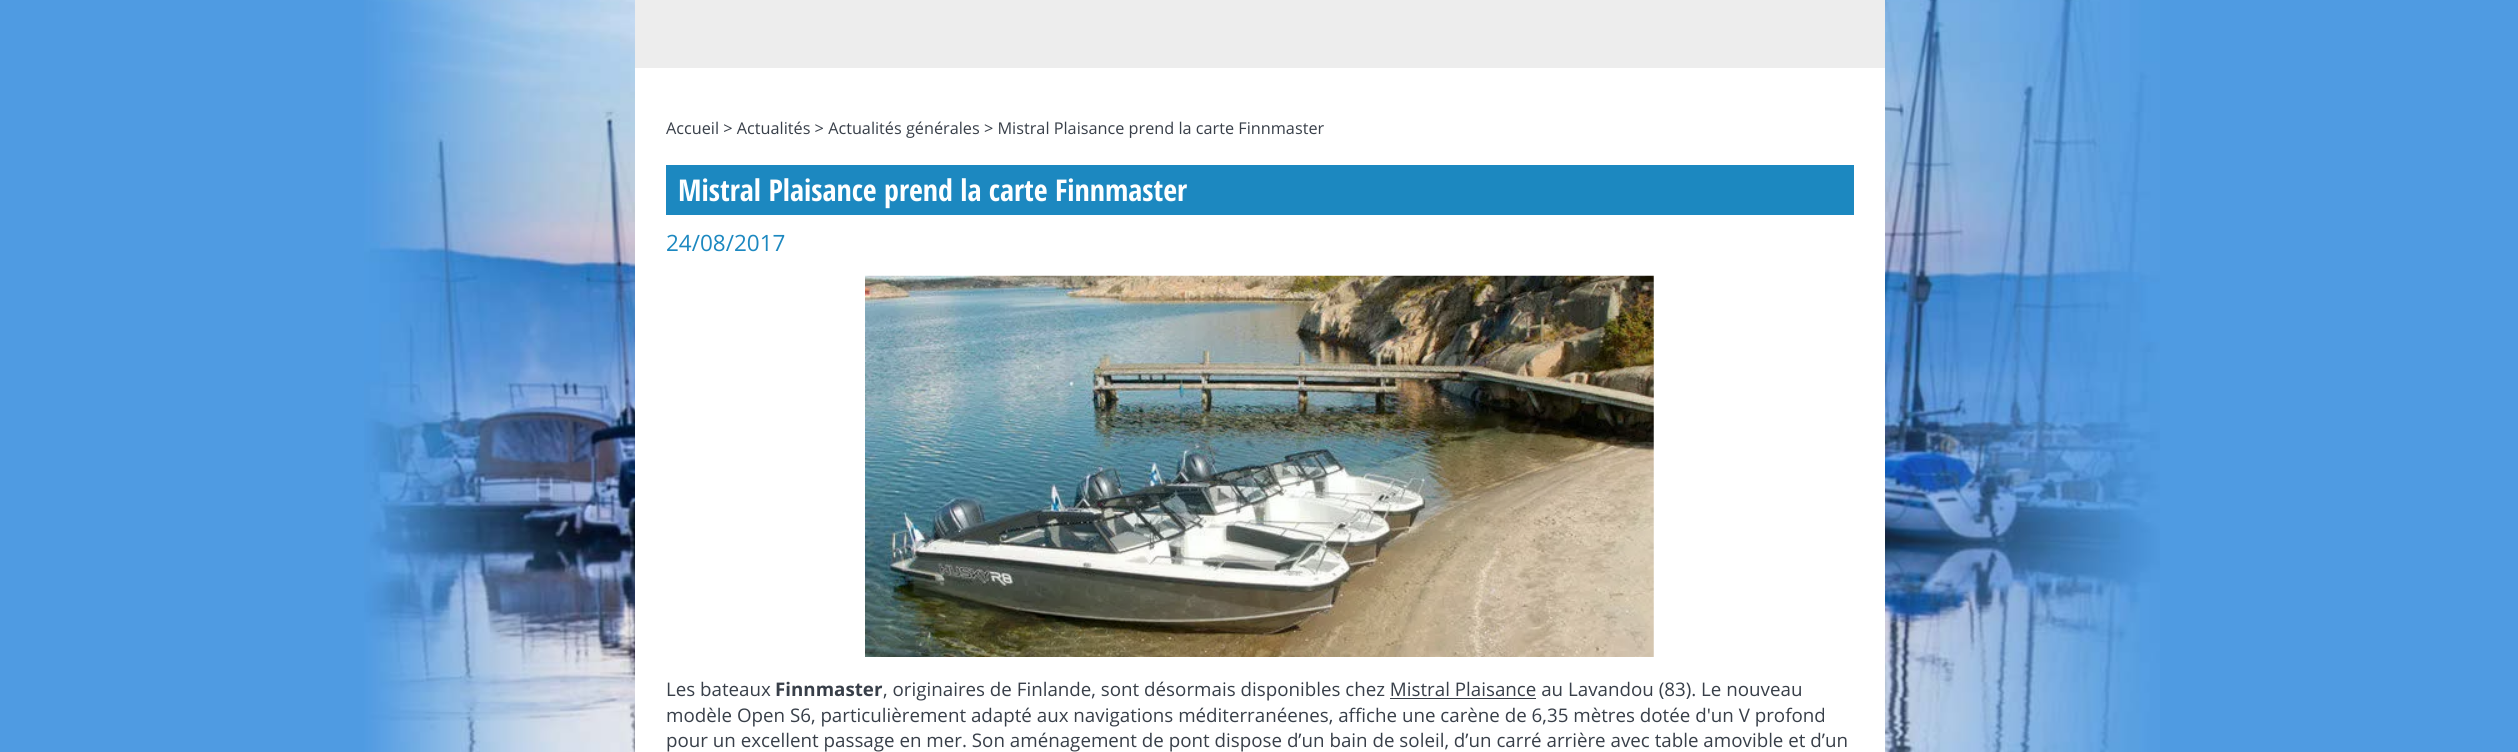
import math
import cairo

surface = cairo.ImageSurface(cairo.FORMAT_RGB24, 2518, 752)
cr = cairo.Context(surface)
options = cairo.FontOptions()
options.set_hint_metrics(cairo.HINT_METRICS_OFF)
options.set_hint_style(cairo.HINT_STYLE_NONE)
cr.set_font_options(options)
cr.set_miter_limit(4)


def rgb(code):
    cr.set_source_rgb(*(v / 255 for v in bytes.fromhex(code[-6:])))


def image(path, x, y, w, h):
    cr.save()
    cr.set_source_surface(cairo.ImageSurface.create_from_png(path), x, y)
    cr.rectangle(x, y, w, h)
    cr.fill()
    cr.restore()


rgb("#4f9be2")
cr.paint()
image("img/1.png", 364, 0, 1796, 752)
for x, y, w, h, color in [
    (635, 0, 1250, 68, "#ededed"),
    (635, 68, 1250, 684, "#ffffff"),
    (666, 165, 1188, 50, "#1c88c0"),
]:
    rgb(color)
    cr.rectangle(x, y, w, h)
    cr.fill()
image("img/2.png", 865, 275, 789, 382)
rgb("#383f49")
cr.rectangle(1390, 698, 146, 1)
cr.fill()
cr.select_font_face("Open Sans")
cr.set_font_size(16.25)
cr.move_to(666, 134)
cr.show_text("Accueil > Actualités > Actualités générales > Mistral Plaisance prend la carte Finnmaster")
cr.select_font_face("Open Sans Condensed", cairo.FONT_SLANT_NORMAL, cairo.FONT_WEIGHT_BOLD)
cr.set_font_size(30)
rgb("#ffffff")
cr.move_to(678, 201)
cr.show_text("Mistral Plaisance prend la carte Finnmaster")
cr.select_font_face("Open Sans")
cr.set_font_size(22.5)
rgb("#1c88c0")
cr.move_to(666, 251)
cr.show_text("24/08/2017")
cr.set_font_size(18.75)
rgb("#383f49")
cr.move_to(666, 696)
cr.show_text("Les bateaux")
cr.select_font_face("Open Sans", cairo.FONT_SLANT_NORMAL, cairo.FONT_WEIGHT_BOLD)
cr.move_to(775, 696)
cr.show_text("Finnmaster")
cr.select_font_face("Open Sans")
for x, y, s in [
    (883, 696, ", originaires de Finlande, sont désormais disponibles chez Mistral Plaisance au Lavandou (83). Le nouveau"),
    (666, 722, "modèle Open S6, particulièrement adapté aux navigations méditerranéenes, affiche une carène de 6,35 mètres dotée d'un V profond"),
    (666, 747, "pour un excellent passage en mer. Son aménagement de pont dispose d’un bain de soleil, d’un carré arrière avec table amovible et d’un"),
]:
    cr.move_to(x, y)
    cr.show_text(s)
surface.write_to_png("page.png")
